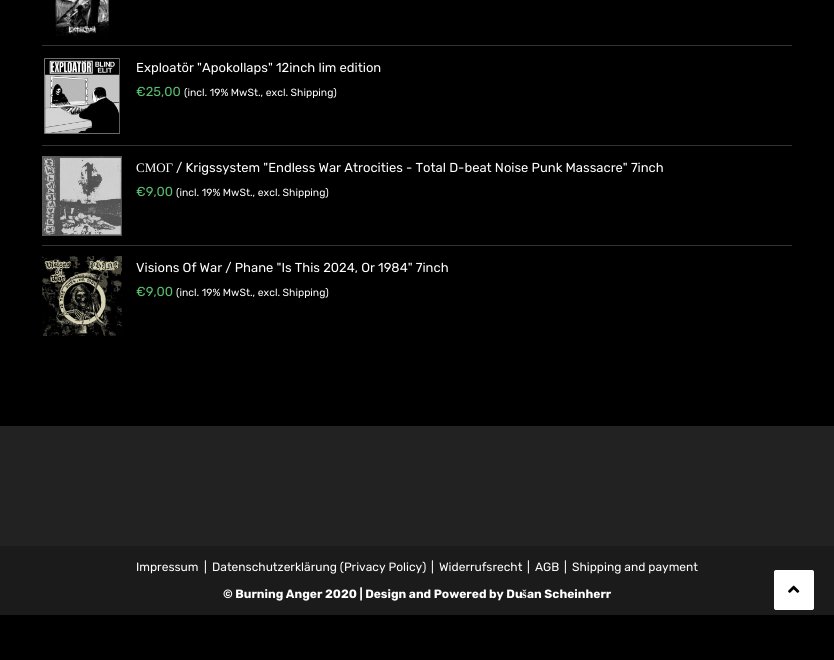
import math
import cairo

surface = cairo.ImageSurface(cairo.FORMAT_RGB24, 834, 660)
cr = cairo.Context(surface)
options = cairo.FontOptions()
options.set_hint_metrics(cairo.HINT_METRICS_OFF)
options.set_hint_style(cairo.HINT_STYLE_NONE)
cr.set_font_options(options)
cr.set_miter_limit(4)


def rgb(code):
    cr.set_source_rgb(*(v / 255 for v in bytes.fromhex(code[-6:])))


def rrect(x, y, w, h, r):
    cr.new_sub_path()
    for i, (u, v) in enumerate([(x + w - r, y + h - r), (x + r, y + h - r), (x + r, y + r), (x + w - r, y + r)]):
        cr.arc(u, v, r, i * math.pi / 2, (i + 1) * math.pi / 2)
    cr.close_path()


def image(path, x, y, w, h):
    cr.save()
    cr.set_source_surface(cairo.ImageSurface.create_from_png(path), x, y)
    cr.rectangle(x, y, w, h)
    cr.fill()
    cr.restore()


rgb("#000000")
cr.paint()
rgb("#333333")
cr.rectangle(42, 45, 750, 1)
cr.fill()
image("img/1.png", 55, 0, 54, 36)
cr.rectangle(42, 145, 750, 1)
cr.fill()
image("img/2.png", 44, 58, 76, 76)
cr.rectangle(42, 245, 750, 1)
cr.fill()
image("img/3.png", 42, 156, 80, 80)
image("img/4.png", 42, 256, 80, 80)
rgb("#222222")
cr.rectangle(0, 426, 834, 120)
cr.fill()
rgb("#1b1b1b")
cr.rectangle(0, 546, 834, 69)
cr.fill()
rgb("#ffffff")
rrect(774, 570, 40, 40, 2)
cr.fill()
image("img/5.png", 788, 585, 12, 8)
cr.select_font_face("Rubik Light")
cr.set_font_size(13)
cr.move_to(136, 72)
cr.show_text("Exploatör \"Apokollaps\" 12inch lim edition")
rgb("#57bf6d")
cr.move_to(136, 96)
cr.show_text("€25,00")
cr.set_font_size(10.4)
rgb("#ffffff")
cr.move_to(184, 96)
cr.show_text("(incl. 19% MwSt., excl. Shipping)")
cr.select_font_face("Liberation Serif")
cr.set_font_size(13)
cr.move_to(136, 172)
cr.show_text("СМОГ")
cr.select_font_face("Rubik Light")
cr.move_to(176, 172)
cr.show_text("/ Krigssystem \"Endless War Atrocities - Total D-beat Noise Punk Massacre\" 7inch")
rgb("#57bf6d")
cr.move_to(136, 196)
cr.show_text("€9,00")
cr.set_font_size(10.4)
rgb("#ffffff")
cr.move_to(176, 196)
cr.show_text("(incl. 19% MwSt., excl. Shipping)")
cr.set_font_size(13)
cr.move_to(136, 272)
cr.show_text("Visions Of War / Phane \"Is This 2024, Or 1984\" 7inch")
rgb("#57bf6d")
cr.move_to(136, 296)
cr.show_text("€9,00")
cr.set_font_size(10.4)
rgb("#ffffff")
cr.move_to(176, 296)
cr.show_text("(incl. 19% MwSt., excl. Shipping)")
cr.set_font_size(12)
for x, y, s in [
    (136, 571, "Impressum"),
    (204, 571, "|"),
    (212, 571, "Datenschutzerklärung (Privacy Policy)"),
    (431, 571, "|"),
    (439, 571, "Widerrufsrecht"),
    (527, 571, "|"),
    (535, 571, "AGB"),
    (564, 571, "|"),
    (572, 571, "Shipping and payment"),
]:
    cr.move_to(x, y)
    cr.show_text(s)
cr.select_font_face("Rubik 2 Light")
cr.move_to(223, 598)
cr.show_text("© Burning Anger 2020 | Design and Powered by Du")
cr.select_font_face("Liberation Serif", cairo.FONT_SLANT_NORMAL, cairo.FONT_WEIGHT_BOLD)
cr.move_to(522, 598)
cr.show_text("š")
cr.select_font_face("Rubik 2 Light")
cr.move_to(527, 598)
cr.show_text("an Scheinherr")
surface.write_to_png("page.png")
